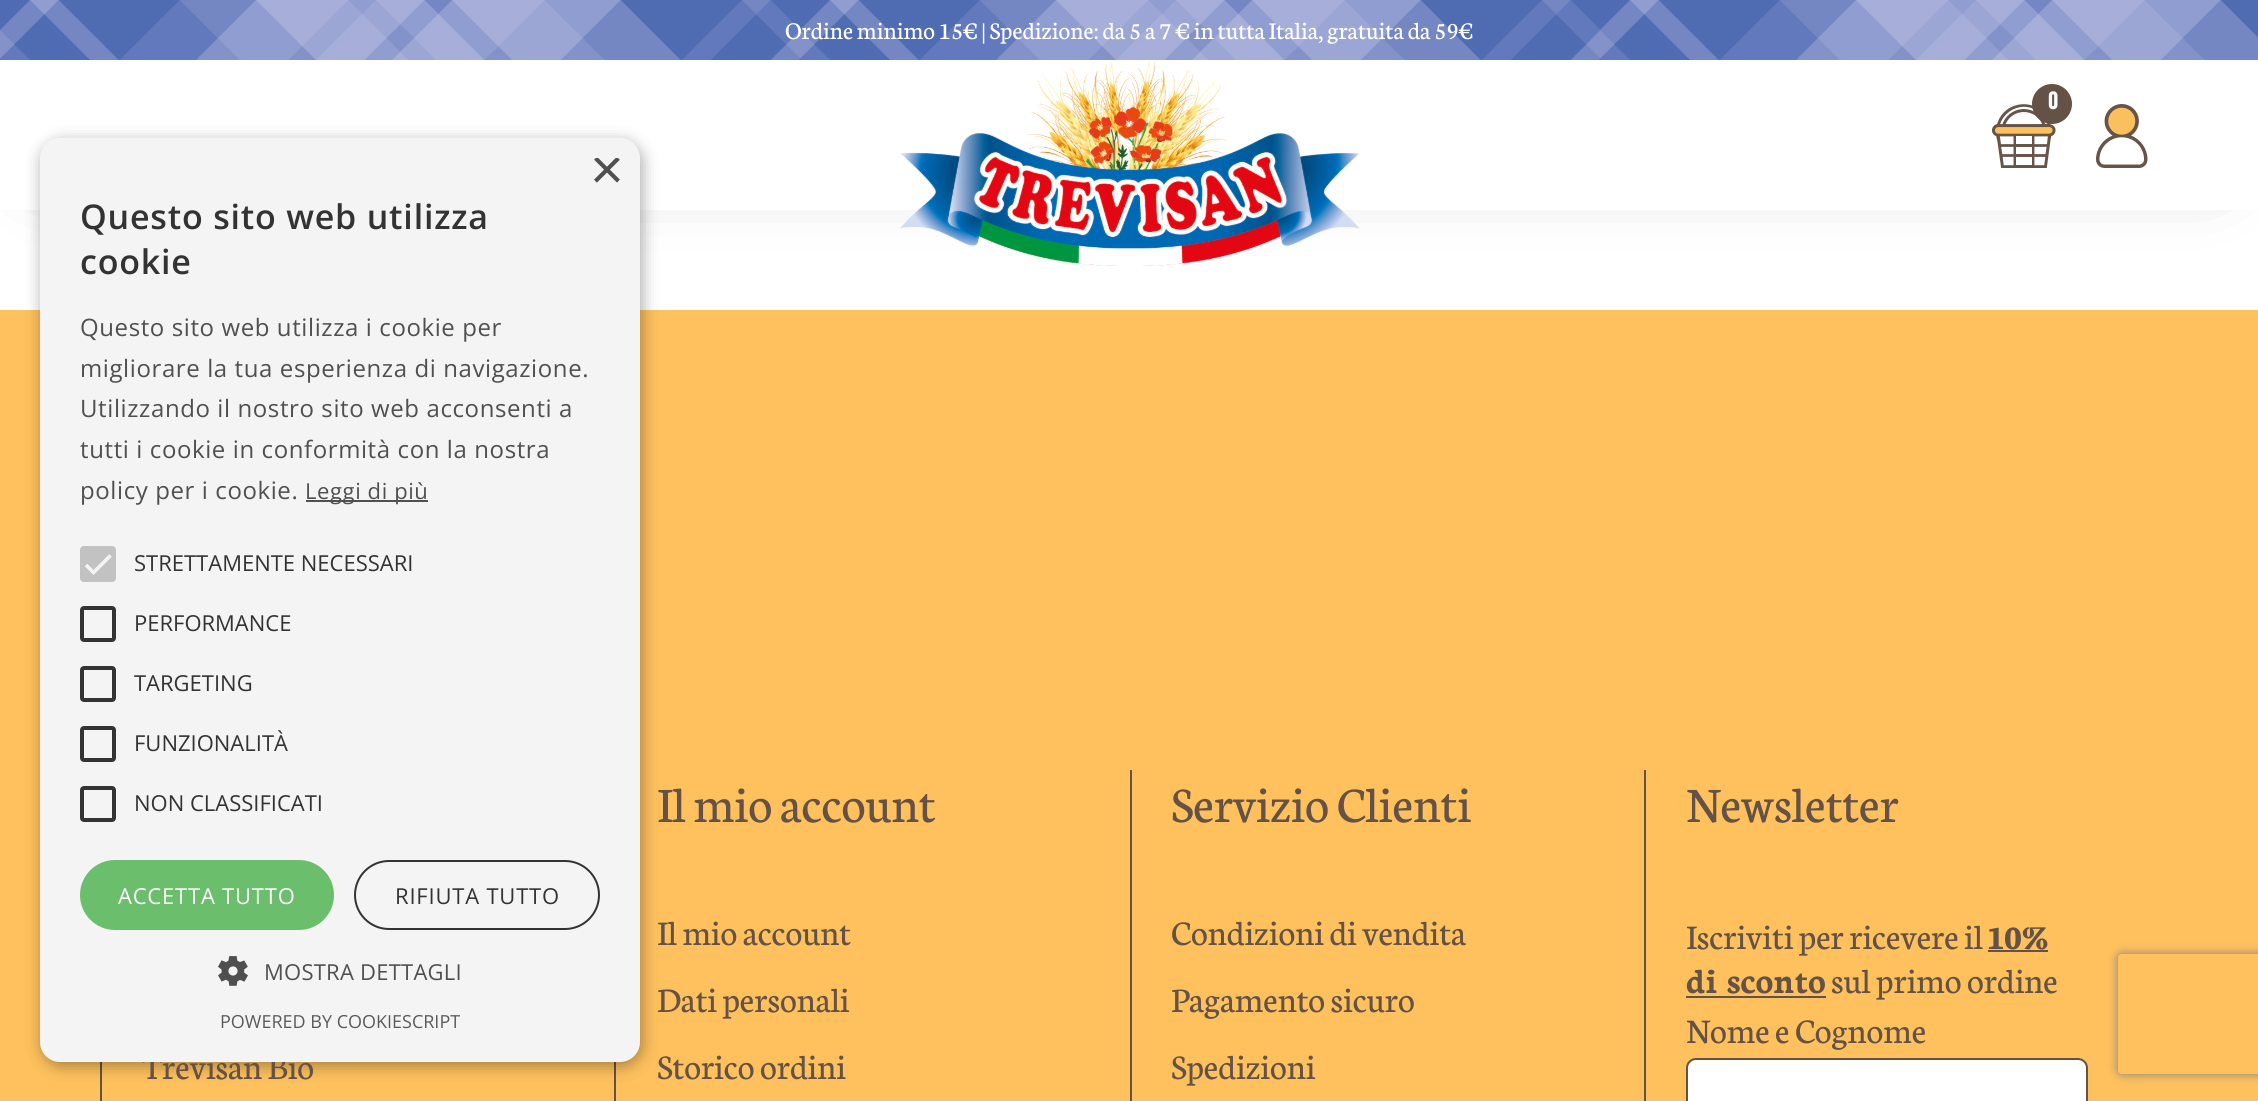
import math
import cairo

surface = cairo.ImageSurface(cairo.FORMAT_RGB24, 2258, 1101)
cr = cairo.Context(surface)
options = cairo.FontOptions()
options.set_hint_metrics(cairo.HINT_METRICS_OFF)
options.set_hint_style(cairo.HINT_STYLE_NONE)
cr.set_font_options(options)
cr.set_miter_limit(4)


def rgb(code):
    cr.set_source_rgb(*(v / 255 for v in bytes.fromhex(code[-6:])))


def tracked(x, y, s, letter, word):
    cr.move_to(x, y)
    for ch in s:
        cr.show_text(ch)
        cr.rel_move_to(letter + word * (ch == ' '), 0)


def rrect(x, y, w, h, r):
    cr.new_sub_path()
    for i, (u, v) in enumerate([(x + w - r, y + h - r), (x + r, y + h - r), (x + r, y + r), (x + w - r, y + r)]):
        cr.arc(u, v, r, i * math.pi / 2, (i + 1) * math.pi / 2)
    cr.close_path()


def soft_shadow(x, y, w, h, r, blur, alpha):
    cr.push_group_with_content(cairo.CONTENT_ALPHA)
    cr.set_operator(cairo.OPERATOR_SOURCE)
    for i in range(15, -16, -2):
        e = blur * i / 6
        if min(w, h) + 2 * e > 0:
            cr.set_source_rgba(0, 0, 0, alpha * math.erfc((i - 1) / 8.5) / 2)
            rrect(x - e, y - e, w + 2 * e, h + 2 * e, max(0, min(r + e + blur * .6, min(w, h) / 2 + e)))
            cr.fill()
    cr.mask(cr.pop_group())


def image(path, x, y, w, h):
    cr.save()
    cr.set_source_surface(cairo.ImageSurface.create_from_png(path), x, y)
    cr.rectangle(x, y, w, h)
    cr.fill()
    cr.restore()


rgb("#ffffff")
cr.paint()
rgb("#000000")
soft_shadow(48, 34, 2162, 114, 0, 41, 0.59)
rgb("#ffffff")
cr.rectangle(0, 60, 2258, 150)
cr.fill()
image("img/1.png", 0, 0, 2258, 60)
image("img/2.png", 900, 60, 460, 206)
image("img/3.png", 1992, 104, 64, 64)
rgb("#645247")
cr.arc(2052, 104, 20, 0, 2 * math.pi)
cr.fill()
image("img/4.png", 2096, 104, 52, 64)
for x, y, w, h, color in [
    (0, 310, 2258, 791, "#ffc15d"),
    (614, 1062, 2, 39, "#645247"),
    (100, 1062, 2, 39, "#645247"),
]:
    rgb(color)
    cr.rectangle(x, y, w, h)
    cr.fill()
rgb("#000000")
soft_shadow(42, 142, 600, 924, 20, 8, 0.35)
for x, y, w, h, color in [
    (1130, 770, 2, 331, "#645247"),
    (1644, 770, 2, 331, "#645247"),
    (1988, 950, 60, 2, "#645247"),
    (1686, 996, 140, 2, "#645247"),
]:
    rgb(color)
    cr.rectangle(x, y, w, h)
    cr.fill()
rgb("#ffffff")
rrect(1687, 1059, 400, 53, 9)
cr.fill_preserve()
rgb("#645247")
cr.stroke()
cr.save()
cr.set_fill_rule(cairo.FILL_RULE_EVEN_ODD)
cr.new_path()
cr.move_to(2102, 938)
cr.line_to(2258, 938)
cr.line_to(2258, 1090)
cr.line_to(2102, 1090)
cr.close_path()
cr.move_to(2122, 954)
cr.line_to(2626, 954)
cr.curve_to(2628, 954, 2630, 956, 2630, 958)
cr.line_to(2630, 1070)
cr.curve_to(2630, 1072, 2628, 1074, 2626, 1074)
cr.line_to(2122, 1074)
cr.curve_to(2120, 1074, 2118, 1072, 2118, 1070)
cr.line_to(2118, 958)
cr.curve_to(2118, 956, 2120, 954, 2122, 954)
cr.close_path()
cr.clip()
rgb("#808080")
soft_shadow(2118, 954, 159, 120, 4, 5, 1)
cr.restore()
cr.select_font_face("Neuton")
cr.set_font_size(25.6)
rgb("#ffffff")
cr.move_to(785, 39)
cr.show_text("Ordine minimo 15€ | Spedizione: da 5 a 7 € in tutta Italia, gratuita da 59€")
cr.select_font_face("Bebas Neue", cairo.FONT_SLANT_NORMAL, cairo.FONT_WEIGHT_BOLD)
cr.set_font_size(24)
cr.move_to(2048, 109)
cr.show_text("0")
cr.select_font_face("Neuton")
cr.set_font_size(52.75)
rgb("#645247")
cr.move_to(657, 822)
cr.show_text("Il mio account")
cr.set_font_size(36.75)
for x, y, s in [
    (657, 945, "Il mio account"),
    (657, 1012, "Dati personali"),
    (657, 1079, "Storico ordini"),
]:
    cr.move_to(x, y)
    cr.show_text(s)
cr.set_font_size(52.75)
cr.move_to(1171, 822)
cr.show_text("Servizio Clienti")
cr.set_font_size(36.75)
for x, y, s in [
    (1171, 945, "Condizioni di vendita"),
    (1171, 1012, "Pagamento sicuro"),
    (1171, 1079, "Spedizioni"),
]:
    cr.move_to(x, y)
    cr.show_text(s)
cr.set_font_size(52.75)
cr.move_to(1686, 822)
cr.show_text("Newsletter")
cr.set_font_size(36.75)
cr.move_to(1686, 949)
cr.show_text("Iscriviti per ricevere il")
cr.select_font_face("Neuton", cairo.FONT_SLANT_NORMAL, cairo.FONT_WEIGHT_BOLD)
cr.move_to(1988, 949)
cr.show_text("10%")
cr.move_to(1686, 993)
cr.show_text("di sconto")
cr.select_font_face("Neuton")
for x, y, s in [
    (1831, 993, "sul primo ordine"),
    (1686, 1043, "Nome e Cognome"),
    (142, 1079, "Trevisan Bio"),
]:
    cr.move_to(x, y)
    cr.show_text(s)
rgb("#f4f4f4")
rrect(40, 138, 600, 924, 20)
cr.fill()
cr.save()
cr.rectangle(590, 158, 30, 30)
cr.clip()
cr.select_font_face("Liberation Sans")
cr.set_font_size(58)
rgb("#505050")
cr.move_to(590, 189)
cr.show_text("×")
cr.restore()
cr.select_font_face("Open Sans")
cr.set_font_size(18)
rgb("#5a5a5a")
cr.move_to(220, 1028)
cr.show_text("POWERED BY COOKIESCRIPT")
image("img/5.png", 218, 956, 30, 30)
cr.set_font_size(22)
rgb("#505050")
tracked(264, 980, "MOSTRA DETTAGLI", 0.25, 0)
rrect(82, 788, 32, 32, 2)
rgb("#333333")
cr.set_line_width(4)
cr.stroke()
rrect(82, 728, 32, 32, 2)
cr.stroke()
rrect(82, 668, 32, 32, 2)
cr.stroke()
rrect(82, 608, 32, 32, 2)
cr.stroke()
rgb("#c2c2c2")
rrect(80, 546, 36, 36, 4)
cr.fill()
cr.new_path()
cr.move_to(86, 565)
cr.line_to(93.5, 572.5)
cr.line_to(110.5, 555.5)
rgb("#f4f4f4")
cr.set_line_width(3.6)
cr.stroke()
rgb("#505050")
cr.rectangle(306, 500, 122, 2)
cr.fill()
tracked(305, 499, "Leggi di più", 0.6, 0)
cr.set_font_size(24)
for x, y, s in [
    (80, 499, "policy per i cookie."),
    (80, 458, "tutti i cookie in conformità con la nostra"),
    (80, 417, "Utilizzando il nostro sito web acconsenti a"),
    (80, 377, "migliorare la tua esperienza di navigazione."),
    (80, 336, "Questo sito web utilizza i cookie per"),
]:
    tracked(x, y, s, 0.6, 0)
rrect(355, 861, 244, 68, 34)
rgb("#333333")
cr.set_line_width(2)
cr.stroke()
cr.set_font_size(22)
tracked(395, 904, "RIFIUTA TUTTO", 0.8, 0)
rgb("#6bbe6b")
rrect(80, 860, 254, 70, 35)
cr.fill()
rgb("#ffffff")
tracked(118, 904, "ACCETTA TUTTO", 0.8, 0)
rgb("#333333")
for x, y, s in [
    (134, 811, "NON CLASSIFICATI"),
    (134, 751, "FUNZIONALITÀ"),
    (134, 691, "TARGETING"),
    (134, 631, "PERFORMANCE"),
    (134, 571, "STRETTAMENTE NECESSARI"),
]:
    cr.move_to(x, y)
    cr.show_text(s)
cr.select_font_face("Open Sans SemiBold")
cr.set_font_size(34)
tracked(80, 274, "cookie", 0.8, 0)
tracked(80, 229, "Questo sito web utilizza", 0.8, 0)
surface.write_to_png("page.png")
